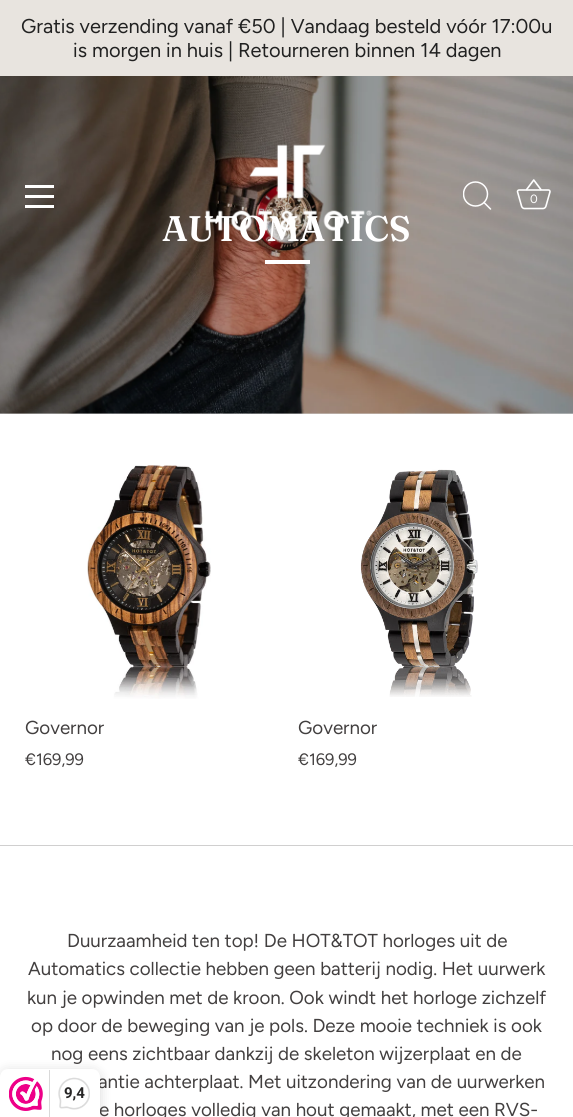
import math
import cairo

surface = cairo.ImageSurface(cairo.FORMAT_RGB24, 573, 1117)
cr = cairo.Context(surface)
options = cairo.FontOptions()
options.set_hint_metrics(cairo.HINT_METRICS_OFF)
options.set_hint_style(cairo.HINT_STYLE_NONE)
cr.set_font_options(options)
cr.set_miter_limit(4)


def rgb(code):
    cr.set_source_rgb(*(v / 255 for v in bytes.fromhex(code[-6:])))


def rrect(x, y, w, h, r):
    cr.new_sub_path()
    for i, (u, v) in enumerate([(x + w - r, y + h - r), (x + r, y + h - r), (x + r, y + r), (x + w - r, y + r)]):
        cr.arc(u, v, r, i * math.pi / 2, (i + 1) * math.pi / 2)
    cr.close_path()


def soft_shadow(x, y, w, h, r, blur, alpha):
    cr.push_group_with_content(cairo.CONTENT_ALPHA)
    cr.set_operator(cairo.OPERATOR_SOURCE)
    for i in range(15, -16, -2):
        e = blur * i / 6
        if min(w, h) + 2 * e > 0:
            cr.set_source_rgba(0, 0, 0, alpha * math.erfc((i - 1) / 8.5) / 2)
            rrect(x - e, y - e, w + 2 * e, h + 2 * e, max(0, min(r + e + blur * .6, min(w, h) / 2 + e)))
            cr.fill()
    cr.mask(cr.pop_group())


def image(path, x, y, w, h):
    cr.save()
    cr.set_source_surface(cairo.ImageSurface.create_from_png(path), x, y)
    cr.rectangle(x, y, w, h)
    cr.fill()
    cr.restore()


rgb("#ffffff")
cr.paint()
rgb("#dbdbdb")
cr.rectangle(0, 413, 573, 1)
cr.fill()
rgb("#e8e4df")
cr.rectangle(0, 0, 573, 76)
cr.fill()
image("img/3.png", 0, 76, 573, 338)
for x, y, w, h, color in [
    (25, 185, 29, 3, "#ffffff"),
    (25, 195, 29, 3, "#ffffff"),
    (25, 205, 29, 3, "#ffffff"),
]:
    rgb(color)
    cr.rectangle(x, y, w, h)
    cr.fill()
cr.save()
cr.rectangle(463, 181, 30, 30)
cr.clip()
cr.arc(475.5, 194, 12, 0, 2 * math.pi)
cr.set_line_width(1.5)
cr.stroke()
cr.restore()
cr.new_path()
cr.move_to(490.5, 209)
cr.line_to(484, 202.5)
cr.set_line_width(1.5)
cr.set_line_cap(cairo.LINE_CAP_ROUND)
cr.set_line_join(cairo.LINE_JOIN_ROUND)
cr.stroke()
image("img/2.png", 516, 179, 35, 31)
cr.rectangle(265, 260, 45, 4)
cr.fill()
image("img/4.png", 87, 465, 124, 234)
image("img/5.png", 360, 469, 118, 228)
rgb("#d0cfcf")
cr.rectangle(0, 845, 573, 1)
cr.fill()
rgb("#000000")
soft_shadow(0, 1071, 100, 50, 8, 6, 0.15)
cr.select_font_face("Figtree")
cr.set_font_size(20)
rgb("#212121")
cr.move_to(21, 33)
cr.show_text("Gratis verzending vanaf €50 | Vandaag besteld vóór 17:00u")
cr.move_to(73, 57)
cr.show_text("is morgen in huis | Retourneren binnen 14 dagen")
cr.set_font_size(12)
rgb("#ffffff")
cr.move_to(530, 203)
cr.show_text("0")
cr.select_font_face("Fraunces SemiBold")
cr.set_font_size(35.5)
cr.move_to(162, 241)
cr.show_text("AUTOMATICS")
image("img/1.png", 205, 144, 167, 88)
cr.select_font_face("Figtree")
cr.set_font_size(18.75)
rgb("#423f3f")
cr.move_to(25, 734)
cr.show_text("Governor")
cr.set_font_size(16.5)
cr.move_to(25, 765)
cr.show_text("€169,99")
cr.set_font_size(18.75)
cr.move_to(298, 734)
cr.show_text("Governor")
cr.set_font_size(16.5)
cr.move_to(298, 765)
cr.show_text("€169,99")
cr.set_font_size(18.75)
for x, y, s in [
    (67, 947, "Duurzaamheid ten top! De HOT&TOT horloges uit de"),
    (28, 975, "Automatics collectie hebben geen batterij nodig. Het uurwerk"),
    (27, 1004, "kun je opwinden met de kroon. Ook windt het horloge zichzelf"),
    (31, 1032, "op door de beweging van je pols. Deze mooie techniek is ook"),
    (51, 1060, "nog eens zichtbaar dankzij de skeleton wijzerplaat en de"),
    (98, 1088, "antie achterplaat. Met uitzondering van de uurwerken"),
    (99, 1116, "e horloges volledig van hout gemaakt, met een RVS-"),
]:
    cr.move_to(x, y)
    cr.show_text(s)
rgb("#ffffff")
cr.new_path()
cr.move_to(8, 1069)
cr.line_to(92, 1069)
cr.curve_to(96.5, 1069, 100, 1072.5, 100, 1077)
cr.line_to(100, 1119)
cr.line_to(0, 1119)
cr.line_to(0, 1077)
cr.curve_to(0, 1072.5, 3.5, 1069, 8, 1069)
cr.close_path()
cr.fill()
image("img/6.png", 9, 1076, 34, 35)
rgb("#d9d9d9")
cr.rectangle(49, 1070, 1, 47)
cr.fill()
image("img/7.png", 58, 1077, 32, 33)
cr.select_font_face("Roboto", cairo.FONT_SLANT_NORMAL, cairo.FONT_WEIGHT_BOLD)
cr.set_font_size(15)
rgb("#272626")
cr.move_to(64, 1098)
cr.show_text("9,4")
surface.write_to_png("page.png")
